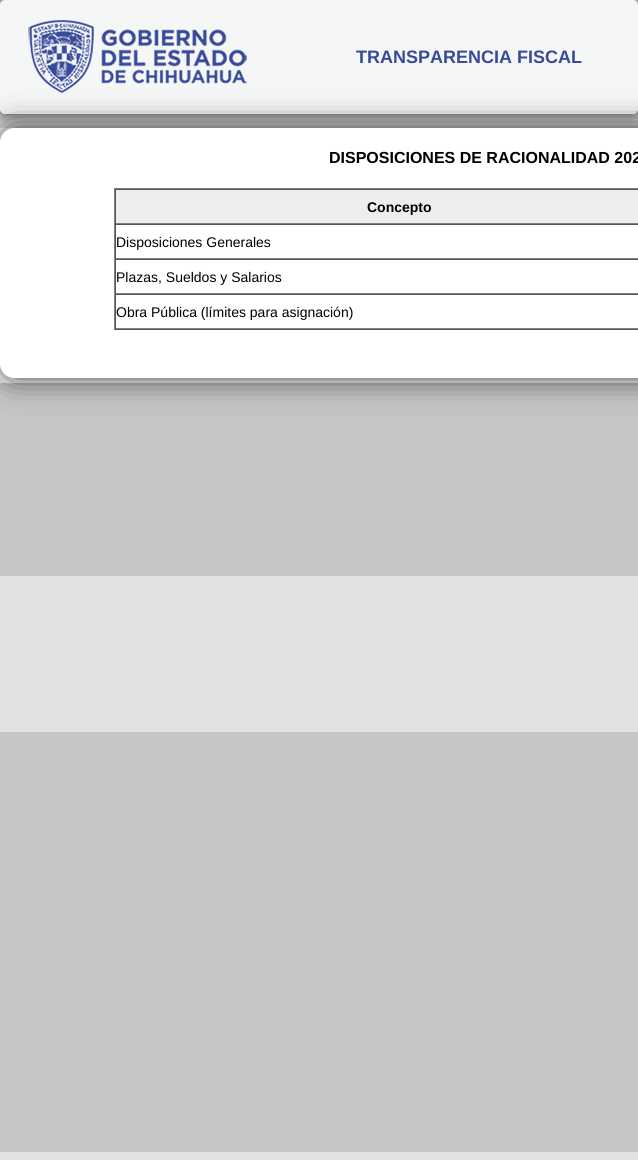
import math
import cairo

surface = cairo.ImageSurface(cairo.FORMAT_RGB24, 638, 1160)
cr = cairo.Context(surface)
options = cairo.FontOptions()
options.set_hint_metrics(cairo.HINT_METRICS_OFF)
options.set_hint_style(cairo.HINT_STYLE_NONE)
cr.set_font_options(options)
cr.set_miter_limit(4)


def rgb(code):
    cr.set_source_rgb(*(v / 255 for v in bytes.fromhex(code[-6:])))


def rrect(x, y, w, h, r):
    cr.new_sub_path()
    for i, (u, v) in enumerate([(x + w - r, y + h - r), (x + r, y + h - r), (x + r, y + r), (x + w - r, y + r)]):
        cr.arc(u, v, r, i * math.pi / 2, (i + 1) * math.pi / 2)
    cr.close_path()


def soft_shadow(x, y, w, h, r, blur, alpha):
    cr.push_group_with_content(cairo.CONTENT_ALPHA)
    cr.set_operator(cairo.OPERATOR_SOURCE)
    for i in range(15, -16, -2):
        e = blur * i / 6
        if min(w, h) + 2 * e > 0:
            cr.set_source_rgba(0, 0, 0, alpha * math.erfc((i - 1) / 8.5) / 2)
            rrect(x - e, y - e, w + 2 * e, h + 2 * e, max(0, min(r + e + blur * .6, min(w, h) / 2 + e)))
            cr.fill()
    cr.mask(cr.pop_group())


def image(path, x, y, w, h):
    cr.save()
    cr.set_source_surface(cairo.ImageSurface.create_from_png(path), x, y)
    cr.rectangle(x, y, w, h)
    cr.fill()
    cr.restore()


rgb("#ffffff")
cr.paint()
image("img/1.png", 0, 0, 638, 1160)
rgb("#333333")
soft_shadow(0, 0, 638, 114, 5, 7.5, 1)
rgb("#f5f6f6")
rrect(0, 0, 638, 114, 5)
cr.fill()
rgb("#ffffff")
cr.rectangle(0, 128, 638, 255)
cr.fill()
cr.save()
cr.set_fill_rule(cairo.FILL_RULE_EVEN_ODD)
cr.new_path()
cr.move_to(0, 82)
cr.line_to(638, 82)
cr.line_to(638, 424)
cr.line_to(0, 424)
cr.close_path()
cr.move_to(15, 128)
cr.line_to(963, 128)
cr.curve_to(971.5, 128, 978, 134.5, 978, 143)
cr.line_to(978, 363)
cr.curve_to(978, 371.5, 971.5, 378, 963, 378)
cr.line_to(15, 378)
cr.curve_to(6.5, 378, 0, 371.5, 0, 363)
cr.line_to(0, 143)
cr.curve_to(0, 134.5, 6.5, 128, 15, 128)
cr.close_path()
cr.clip()
rgb("#333333")
soft_shadow(0, 128, 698, 250, 15, 15, 1)
cr.restore()
image("img/2.png", 28, 20, 219, 73)
for x, y, w, h, color in [
    (114, 188, 524, 1, "#808080"),
    (114, 329, 524, 1, "#555555"),
    (114, 188, 1, 142, "#808080"),
    (116, 190, 522, 33, "#eeeeee"),
    (115, 189, 523, 1, "#555555"),
    (115, 223, 523, 1, "#808080"),
    (115, 189, 1, 35, "#555555"),
    (115, 224, 523, 1, "#555555"),
    (115, 258, 523, 1, "#808080"),
    (115, 224, 1, 35, "#555555"),
    (115, 259, 523, 1, "#555555"),
    (115, 293, 523, 1, "#808080"),
    (115, 259, 1, 35, "#555555"),
    (115, 294, 523, 1, "#555555"),
    (115, 328, 523, 1, "#808080"),
    (115, 294, 1, 35, "#555555"),
]:
    rgb(color)
    cr.rectangle(x, y, w, h)
    cr.fill()
cr.select_font_face("Liberation Sans", cairo.FONT_SLANT_NORMAL, cairo.FONT_WEIGHT_BOLD)
cr.set_font_size(18)
rgb("#384b9b")
cr.move_to(356, 63)
cr.show_text("TRANSPARENCIA FISCAL")
cr.set_font_size(16)
rgb("#000000")
cr.move_to(329, 163)
cr.show_text("DISPOSICIONES DE RACIONALIDAD 202")
cr.set_font_size(14)
cr.move_to(367, 212)
cr.show_text("Concepto")
cr.select_font_face("Liberation Sans")
for x, y, s in [
    (116, 247, "Disposiciones Generales"),
    (116, 282, "Plazas, Sueldos y Salarios"),
    (116, 317, "Obra Pública (límites para asignación)"),
]:
    cr.move_to(x, y)
    cr.show_text(s)
surface.write_to_png("page.png")
